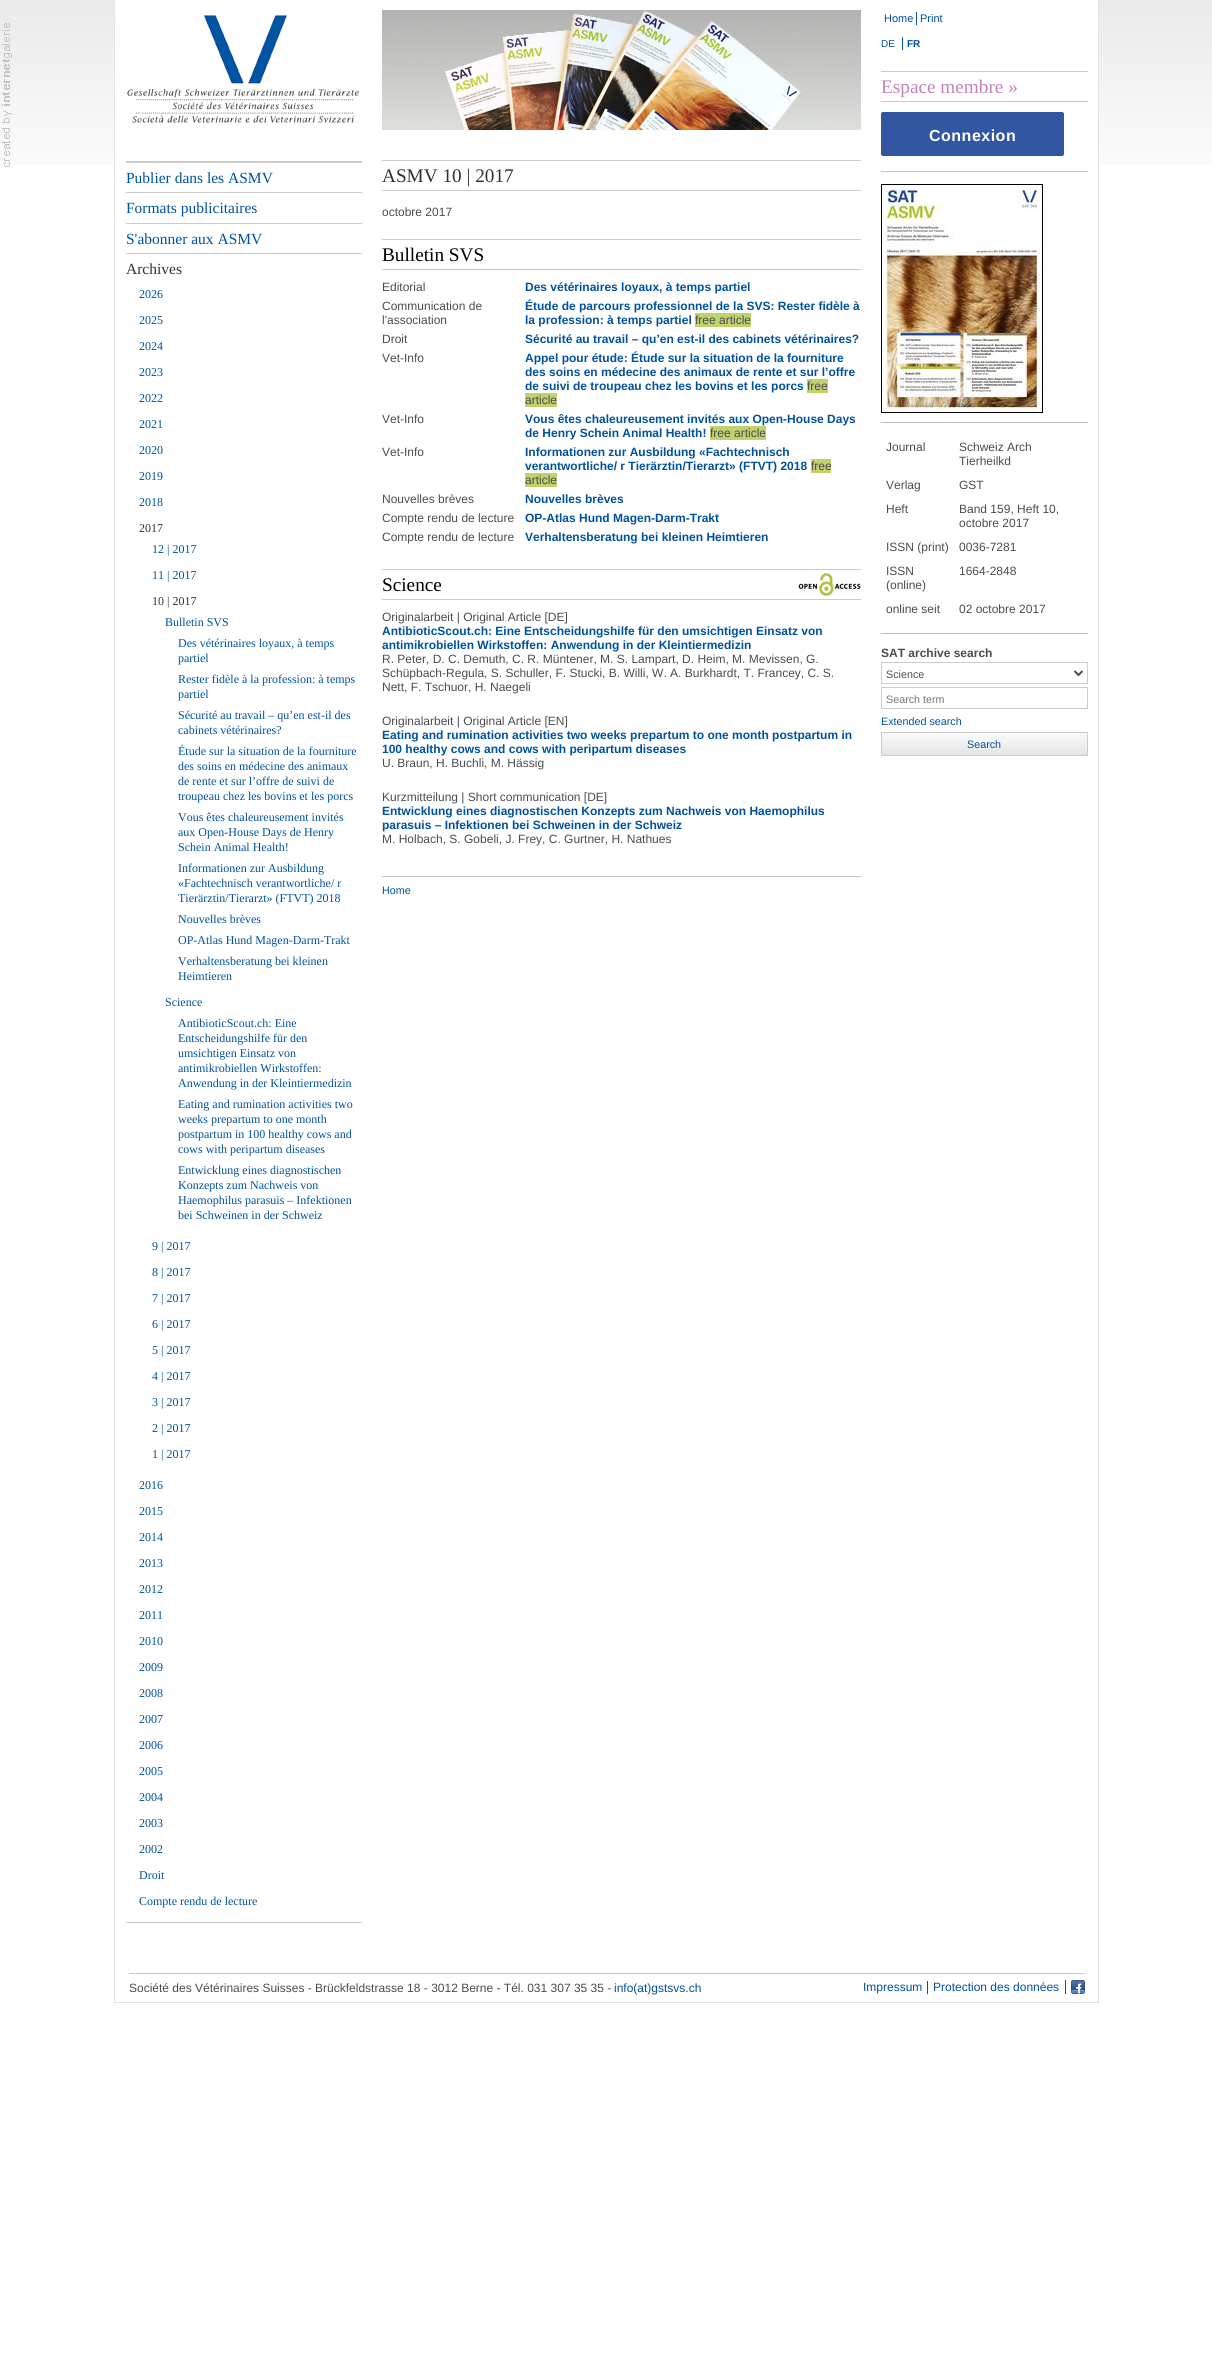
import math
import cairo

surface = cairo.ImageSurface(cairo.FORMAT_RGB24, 1212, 2358)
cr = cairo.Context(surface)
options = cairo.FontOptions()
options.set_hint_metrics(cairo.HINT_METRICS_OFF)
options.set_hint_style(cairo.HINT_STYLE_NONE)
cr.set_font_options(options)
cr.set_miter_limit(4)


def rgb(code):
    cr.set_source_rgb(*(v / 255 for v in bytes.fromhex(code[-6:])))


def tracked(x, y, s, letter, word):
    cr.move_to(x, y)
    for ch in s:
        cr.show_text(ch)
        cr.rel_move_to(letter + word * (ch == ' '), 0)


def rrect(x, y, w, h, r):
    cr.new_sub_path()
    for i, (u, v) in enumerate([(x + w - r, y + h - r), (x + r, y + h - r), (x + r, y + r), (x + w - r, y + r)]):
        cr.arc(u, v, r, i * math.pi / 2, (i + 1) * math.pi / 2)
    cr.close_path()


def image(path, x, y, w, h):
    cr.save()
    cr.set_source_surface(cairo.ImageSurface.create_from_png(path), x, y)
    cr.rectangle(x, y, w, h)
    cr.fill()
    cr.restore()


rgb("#ffffff")
cr.paint()
image("img/1.png", 0, 0, 1212, 165)
image("img/2.png", 2, 23, 10, 144)
for x, y, w, h, color in [
    (115, 0, 983, 165, "#ffffff"),
    (1098, 0, 1, 2003, "#e3e3e4"),
    (114, 0, 1, 1973, "#e3e3e4"),
]:
    rgb(color)
    cr.rectangle(x, y, w, h)
    cr.fill()
image("img/3.png", 127, 15, 232, 108)
for x, y, w, h, color in [
    (126, 161, 236, 2, "#cccccc"),
    (126, 192, 236, 1, "#cccccc"),
    (126, 223, 236, 1, "#cccccc"),
    (126, 253, 236, 1, "#cccccc"),
    (126, 1922, 236, 1, "#cccccc"),
]:
    rgb(color)
    cr.rectangle(x, y, w, h)
    cr.fill()
image("img/4.png", 382, 10, 479, 120)
for x, y, w, h, color in [
    (382, 160, 479, 1, "#cccccc"),
    (382, 190, 479, 1, "#cccccc"),
    (382, 239, 479, 1, "#cccccc"),
    (382, 269, 479, 1, "#cccccc"),
    (695, 313, 56, 14, "#c0d26e"),
    (807, 379, 21, 14, "#c0d26e"),
    (525, 393, 32, 14, "#c0d26e"),
    (710, 426, 56, 14, "#c0d26e"),
    (811, 459, 20, 14, "#c0d26e"),
    (525, 473, 32, 14, "#c0d26e"),
]:
    rgb(color)
    cr.rectangle(x, y, w, h)
    cr.fill()
image("img/5.png", 798, 573, 63, 23)
for x, y, w, h, color in [
    (382, 569, 479, 1, "#cccccc"),
    (382, 599, 479, 1, "#cccccc"),
    (382, 876, 479, 1, "#c2c2c2"),
    (916, 12, 1, 13, "#00519e"),
    (902, 37, 1, 13, "#00519e"),
    (881, 71, 207, 1, "#cccccc"),
    (881, 101, 207, 1, "#cccccc"),
]:
    rgb(color)
    cr.rectangle(x, y, w, h)
    cr.fill()
rgb("#3356a2")
rrect(881, 112, 183, 44, 2)
cr.fill()
rgb("#c2c2c2")
cr.rectangle(881, 171, 207, 1)
cr.fill()
cr.rectangle(881.5, 184.5, 161, 228)
rgb("#000000")
cr.set_line_width(1)
cr.stroke()
image("img/6.png", 882, 185, 160, 225)
rgb("#c2c2c2")
cr.rectangle(881, 422, 207, 1)
cr.fill()
cr.rectangle(881, 633, 207, 1)
cr.fill()
cr.rectangle(881.5, 662.5, 206, 21)
rgb("#cccccc")
cr.stroke()
cr.new_path()
cr.move_to(1074.5, 671)
cr.line_to(1078.5, 675)
cr.line_to(1082.5, 671)
rgb("#4c4c4c")
cr.set_line_width(2)
cr.stroke()
cr.rectangle(881.5, 687.5, 206, 21)
rgb("#cccccc")
cr.set_line_width(1)
cr.stroke()
image("img/7.png", 882, 733, 205, 22)
cr.rectangle(881.5, 732.5, 206, 23)
cr.stroke()
for x, y, w, h, color in [
    (114, 2002, 985, 1, "#e3e3e4"),
    (114, 1973, 1, 30, "#e3e3e4"),
    (129, 1973, 956, 1, "#cccccc"),
    (927, 1981, 1, 13, "#00519e"),
    (1065, 1980, 1, 14, "#00519e"),
]:
    rgb(color)
    cr.rectangle(x, y, w, h)
    cr.fill()
image("img/8.png", 1071, 1980, 14, 14)
cr.select_font_face("Liberation Serif")
cr.set_font_size(15.5)
for x, y, s in [
    (126, 183, "Publier dans les ASMV"),
    (126, 213, "Formats publicitaires"),
    (126, 244, "S'abonner aux ASMV"),
]:
    cr.move_to(x, y)
    cr.show_text(s)
rgb("#313131")
cr.move_to(126, 274)
cr.show_text("Archives")
cr.set_font_size(12)
rgb("#00519e")
for x, y, s in [
    (139, 298, "2026"),
    (139, 324, "2025"),
    (139, 350, "2024"),
    (139, 376, "2023"),
    (139, 402, "2022"),
    (139, 428, "2021"),
    (139, 454, "2020"),
    (139, 480, "2019"),
    (139, 506, "2018"),
]:
    cr.move_to(x, y)
    cr.show_text(s)
rgb("#313131")
cr.move_to(139, 532)
cr.show_text("2017")
rgb("#00519e")
cr.move_to(152, 553)
cr.show_text("12 | 2017")
cr.move_to(152, 579)
cr.show_text("11 | 2017")
rgb("#313131")
cr.move_to(152, 605)
cr.show_text("10 | 2017")
rgb("#00519e")
for x, y, s in [
    (165, 626, "Bulletin SVS"),
    (178, 647, "Des vétérinaires loyaux, à temps"),
    (178, 662, "partiel"),
    (178, 683, "Rester fidèle à la profession: à temps"),
    (178, 698, "partiel"),
    (178, 719, "Sécurité au travail – qu’en est-il des"),
    (178, 734, "cabinets vétérinaires?"),
    (178, 755, "Étude sur la situation de la fourniture"),
    (178, 770, "des soins en médecine des animaux"),
    (178, 785, "de rente et sur l’offre de suivi de"),
    (178, 800, "troupeau chez les bovins et les porcs"),
    (178, 821, "Vous êtes chaleureusement invités"),
    (178, 836, "aux Open-House Days de Henry"),
    (178, 851, "Schein Animal Health!"),
    (178, 872, "Informationen zur Ausbildung"),
    (178, 887, "«Fachtechnisch verantwortliche/ r"),
    (178, 902, "Tierärztin/Tierarzt» (FTVT) 2018"),
    (178, 923, "Nouvelles brèves"),
    (178, 944, "OP-Atlas Hund Magen-Darm-Trakt"),
    (178, 965, "Verhaltensberatung bei kleinen"),
    (178, 980, "Heimtieren"),
    (165, 1006, "Science"),
    (178, 1027, "AntibioticScout.ch: Eine"),
    (178, 1042, "Entscheidungshilfe für den"),
    (178, 1057, "umsichtigen Einsatz von"),
    (178, 1072, "antimikrobiellen Wirkstoffen:"),
    (178, 1087, "Anwendung in der Kleintiermedizin"),
    (178, 1108, "Eating and rumination activities two"),
    (178, 1123, "weeks prepartum to one month"),
    (178, 1138, "postpartum in 100 healthy cows and"),
    (178, 1153, "cows with peripartum diseases"),
    (178, 1174, "Entwicklung eines diagnostischen"),
    (178, 1189, "Konzepts zum Nachweis von"),
    (178, 1204, "Haemophilus parasuis – Infektionen"),
    (178, 1219, "bei Schweinen in der Schweiz"),
    (152, 1250, "9 | 2017"),
    (152, 1276, "8 | 2017"),
    (152, 1302, "7 | 2017"),
    (152, 1328, "6 | 2017"),
    (152, 1354, "5 | 2017"),
    (152, 1380, "4 | 2017"),
    (152, 1406, "3 | 2017"),
    (152, 1432, "2 | 2017"),
    (152, 1458, "1 | 2017"),
    (139, 1489, "2016"),
    (139, 1515, "2015"),
    (139, 1541, "2014"),
    (139, 1567, "2013"),
    (139, 1593, "2012"),
    (139, 1619, "2011"),
    (139, 1645, "2010"),
    (139, 1671, "2009"),
    (139, 1697, "2008"),
    (139, 1723, "2007"),
    (139, 1749, "2006"),
    (139, 1775, "2005"),
    (139, 1801, "2004"),
    (139, 1827, "2003"),
    (139, 1853, "2002"),
    (139, 1879, "Droit"),
    (139, 1905, "Compte rendu de lecture"),
]:
    cr.move_to(x, y)
    cr.show_text(s)
cr.set_font_size(19.25)
rgb("#313131")
cr.move_to(382, 182)
cr.show_text("ASMV 10 | 2017")
cr.select_font_face("Liberation Sans")
cr.set_font_size(12)
rgb("#4c4c4c")
cr.move_to(382, 216)
cr.show_text("octobre 2017")
cr.select_font_face("Liberation Serif")
cr.set_font_size(19.25)
rgb("#000000")
cr.move_to(382, 261)
cr.show_text("Bulletin SVS")
cr.select_font_face("Liberation Sans")
cr.set_font_size(12)
rgb("#4c4c4c")
cr.move_to(382, 291)
cr.show_text("Editorial")
cr.select_font_face("Liberation Sans", cairo.FONT_SLANT_NORMAL, cairo.FONT_WEIGHT_BOLD)
rgb("#00519e")
cr.move_to(525, 291)
cr.show_text("Des vétérinaires loyaux, à temps partiel")
cr.select_font_face("Liberation Sans")
rgb("#4c4c4c")
cr.move_to(382, 310)
cr.show_text("Communication de")
cr.move_to(382, 324)
cr.show_text("l'association")
cr.select_font_face("Liberation Sans", cairo.FONT_SLANT_NORMAL, cairo.FONT_WEIGHT_BOLD)
rgb("#00519e")
cr.move_to(525, 310)
cr.show_text("Étude de parcours professionnel de la SVS: Rester fidèle à")
cr.move_to(525, 324)
cr.show_text("la profession: à temps partiel")
cr.select_font_face("Liberation Sans")
rgb("#4c4c4c")
cr.move_to(695, 324)
cr.show_text("free article")
cr.move_to(382, 343)
cr.show_text("Droit")
cr.select_font_face("Liberation Sans", cairo.FONT_SLANT_NORMAL, cairo.FONT_WEIGHT_BOLD)
rgb("#00519e")
cr.move_to(525, 343)
cr.show_text("Sécurité au travail – qu’en est-il des cabinets vétérinaires?")
cr.select_font_face("Liberation Sans")
rgb("#4c4c4c")
cr.move_to(382, 362)
cr.show_text("Vet-Info")
cr.select_font_face("Liberation Sans", cairo.FONT_SLANT_NORMAL, cairo.FONT_WEIGHT_BOLD)
rgb("#00519e")
for x, y, s in [
    (525, 362, "Appel pour étude: Étude sur la situation de la fourniture"),
    (525, 376, "des soins en médecine des animaux de rente et sur l’offre"),
    (525, 390, "de suivi de troupeau chez les bovins et les porcs"),
]:
    cr.move_to(x, y)
    cr.show_text(s)
cr.select_font_face("Liberation Sans")
rgb("#4c4c4c")
for x, y, s in [
    (807, 390, "free"),
    (525, 404, "article"),
    (382, 423, "Vet-Info"),
]:
    cr.move_to(x, y)
    cr.show_text(s)
cr.select_font_face("Liberation Sans", cairo.FONT_SLANT_NORMAL, cairo.FONT_WEIGHT_BOLD)
rgb("#00519e")
cr.move_to(525, 423)
cr.show_text("Vous êtes chaleureusement invités aux Open-House Days")
cr.move_to(525, 437)
cr.show_text("de Henry Schein Animal Health!")
cr.select_font_face("Liberation Sans")
rgb("#4c4c4c")
cr.move_to(710, 437)
cr.show_text("free article")
cr.move_to(382, 456)
cr.show_text("Vet-Info")
cr.select_font_face("Liberation Sans", cairo.FONT_SLANT_NORMAL, cairo.FONT_WEIGHT_BOLD)
rgb("#00519e")
cr.move_to(525, 456)
cr.show_text("Informationen zur Ausbildung «Fachtechnisch")
cr.move_to(525, 470)
cr.show_text("verantwortliche/ r Tierärztin/Tierarzt» (FTVT) 2018")
cr.select_font_face("Liberation Sans")
rgb("#4c4c4c")
for x, y, s in [
    (811, 470, "free"),
    (525, 484, "article"),
    (382, 503, "Nouvelles brèves"),
]:
    cr.move_to(x, y)
    cr.show_text(s)
cr.select_font_face("Liberation Sans", cairo.FONT_SLANT_NORMAL, cairo.FONT_WEIGHT_BOLD)
rgb("#00519e")
cr.move_to(525, 503)
cr.show_text("Nouvelles brèves")
cr.select_font_face("Liberation Sans")
rgb("#4c4c4c")
cr.move_to(382, 522)
cr.show_text("Compte rendu de lecture")
cr.select_font_face("Liberation Sans", cairo.FONT_SLANT_NORMAL, cairo.FONT_WEIGHT_BOLD)
rgb("#00519e")
cr.move_to(525, 522)
cr.show_text("OP-Atlas Hund Magen-Darm-Trakt")
cr.select_font_face("Liberation Sans")
rgb("#4c4c4c")
cr.move_to(382, 541)
cr.show_text("Compte rendu de lecture")
cr.select_font_face("Liberation Sans", cairo.FONT_SLANT_NORMAL, cairo.FONT_WEIGHT_BOLD)
rgb("#00519e")
cr.move_to(525, 541)
cr.show_text("Verhaltensberatung bei kleinen Heimtieren")
cr.select_font_face("Liberation Serif")
cr.set_font_size(19.25)
rgb("#000000")
cr.move_to(382, 591)
cr.show_text("Science")
cr.select_font_face("Liberation Sans")
cr.set_font_size(12)
rgb("#4c4c4c")
cr.move_to(382, 621)
cr.show_text("Originalarbeit | Original Article [DE]")
cr.select_font_face("Liberation Sans", cairo.FONT_SLANT_NORMAL, cairo.FONT_WEIGHT_BOLD)
rgb("#00519e")
cr.move_to(382, 635)
cr.show_text("AntibioticScout.ch: Eine Entscheidungshilfe für den umsichtigen Einsatz von")
cr.move_to(382, 649)
cr.show_text("antimikrobiellen Wirkstoffen: Anwendung in der Kleintiermedizin")
cr.select_font_face("Liberation Sans")
rgb("#4c4c4c")
for x, y, s in [
    (382, 663, "R. Peter, D. C. Demuth, C. R. Müntener, M. S. Lampart, D. Heim, M. Mevissen, G."),
    (382, 677, "Schüpbach-Regula, S. Schuller, F. Stucki, B. Willi, W. A. Burkhardt, T. Francey, C. S."),
    (382, 691, "Nett, F. Tschuor, H. Naegeli"),
    (382, 725, "Originalarbeit | Original Article [EN]"),
]:
    cr.move_to(x, y)
    cr.show_text(s)
cr.select_font_face("Liberation Sans", cairo.FONT_SLANT_NORMAL, cairo.FONT_WEIGHT_BOLD)
rgb("#00519e")
cr.move_to(382, 739)
cr.show_text("Eating and rumination activities two weeks prepartum to one month postpartum in")
cr.move_to(382, 753)
cr.show_text("100 healthy cows and cows with peripartum diseases")
cr.select_font_face("Liberation Sans")
rgb("#4c4c4c")
cr.move_to(382, 767)
cr.show_text("U. Braun, H. Buchli, M. Hässig")
cr.move_to(382, 801)
cr.show_text("Kurzmitteilung | Short communication [DE]")
cr.select_font_face("Liberation Sans", cairo.FONT_SLANT_NORMAL, cairo.FONT_WEIGHT_BOLD)
rgb("#00519e")
cr.move_to(382, 815)
cr.show_text("Entwicklung eines diagnostischen Konzepts zum Nachweis von Haemophilus")
cr.move_to(382, 829)
cr.show_text("parasuis – Infektionen bei Schweinen in der Schweiz")
cr.select_font_face("Liberation Sans")
rgb("#4c4c4c")
cr.move_to(382, 843)
cr.show_text("M. Holbach, S. Gobeli, J. Frey, C. Gurtner, H. Nathues")
cr.set_font_size(10.75)
rgb("#00519e")
cr.move_to(382, 894)
cr.show_text("Home")
cr.set_font_size(11)
cr.move_to(884, 22)
cr.show_text("Home")
cr.move_to(920, 22)
cr.show_text("Print")
cr.set_font_size(10)
cr.move_to(881, 47)
cr.show_text("DE")
cr.select_font_face("Liberation Sans", cairo.FONT_SLANT_NORMAL, cairo.FONT_WEIGHT_BOLD)
cr.move_to(907, 47)
cr.show_text("FR")
cr.select_font_face("Liberation Serif")
cr.set_font_size(19.25)
rgb("#c584b6")
cr.move_to(881, 93)
cr.show_text("Espace membre »")
cr.select_font_face("Liberation Sans", cairo.FONT_SLANT_NORMAL, cairo.FONT_WEIGHT_BOLD)
cr.set_font_size(16)
rgb("#ffffff")
tracked(929, 141, "Connexion", 0.5, 0)
cr.select_font_face("Liberation Sans")
cr.set_font_size(12)
rgb("#4c4c4c")
for x, y, s in [
    (886, 451, "Journal"),
    (959, 451, "Schweiz Arch"),
    (959, 465, "Tierheilkd"),
    (886, 489, "Verlag"),
    (959, 489, "GST"),
    (886, 513, "Heft"),
    (959, 513, "Band 159, Heft 10,"),
    (959, 527, "octobre 2017"),
    (886, 551, "ISSN (print)"),
    (959, 551, "0036-7281"),
    (886, 575, "ISSN"),
    (886, 589, "(online)"),
    (959, 575, "1664-2848"),
    (886, 613, "online seit"),
    (959, 613, "02 octobre 2017"),
]:
    cr.move_to(x, y)
    cr.show_text(s)
cr.select_font_face("Liberation Sans", cairo.FONT_SLANT_NORMAL, cairo.FONT_WEIGHT_BOLD)
cr.move_to(881, 657)
cr.show_text("SAT archive search")
cr.select_font_face("Liberation Sans")
cr.set_font_size(10.75)
cr.move_to(886, 678)
cr.show_text("Science")
rgb("#757575")
cr.move_to(886, 703)
cr.show_text("Search term")
rgb("#00519e")
cr.move_to(881, 725)
cr.show_text("Extended search")
cr.move_to(967, 748)
cr.show_text("Search")
cr.set_font_size(12)
rgb("#4c4c4c")
cr.move_to(129, 1992)
cr.show_text("Société des Vétérinaires Suisses - Brückfeldstrasse 18 - 3012 Berne - Tél. 031 307 35 35 -")
rgb("#00519e")
for x, y, s in [
    (614, 1992, "info(at)gstsvs.ch"),
    (863, 1991, "Impressum"),
    (933, 1991, "Protection des données"),
]:
    cr.move_to(x, y)
    cr.show_text(s)
surface.write_to_png("page.png")
